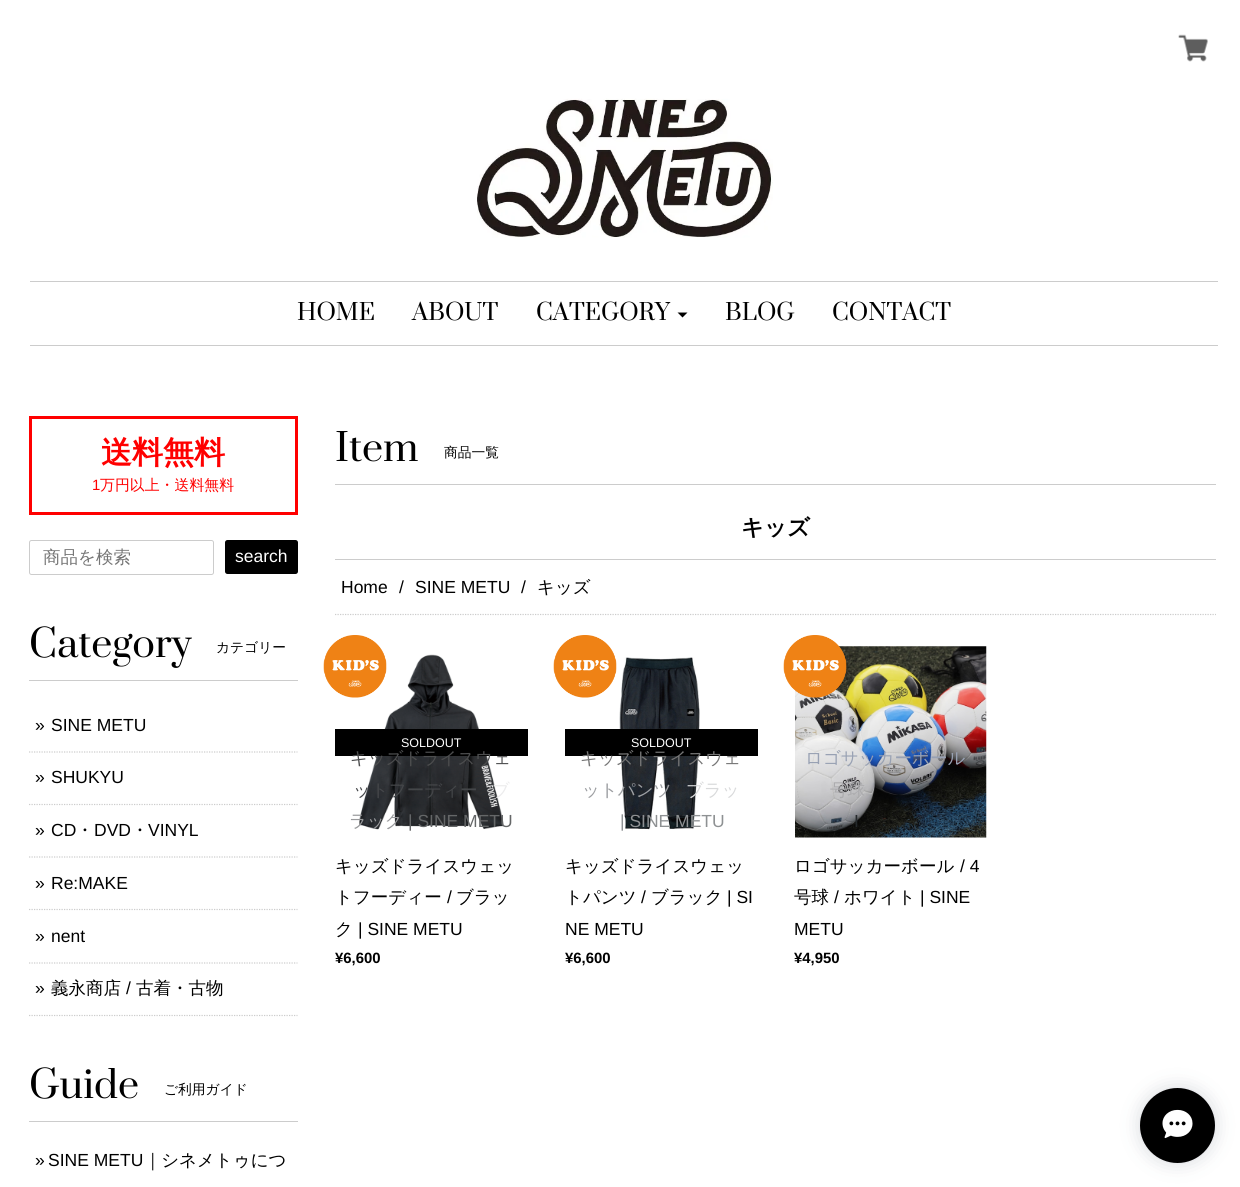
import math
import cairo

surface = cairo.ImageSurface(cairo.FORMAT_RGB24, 1240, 1187)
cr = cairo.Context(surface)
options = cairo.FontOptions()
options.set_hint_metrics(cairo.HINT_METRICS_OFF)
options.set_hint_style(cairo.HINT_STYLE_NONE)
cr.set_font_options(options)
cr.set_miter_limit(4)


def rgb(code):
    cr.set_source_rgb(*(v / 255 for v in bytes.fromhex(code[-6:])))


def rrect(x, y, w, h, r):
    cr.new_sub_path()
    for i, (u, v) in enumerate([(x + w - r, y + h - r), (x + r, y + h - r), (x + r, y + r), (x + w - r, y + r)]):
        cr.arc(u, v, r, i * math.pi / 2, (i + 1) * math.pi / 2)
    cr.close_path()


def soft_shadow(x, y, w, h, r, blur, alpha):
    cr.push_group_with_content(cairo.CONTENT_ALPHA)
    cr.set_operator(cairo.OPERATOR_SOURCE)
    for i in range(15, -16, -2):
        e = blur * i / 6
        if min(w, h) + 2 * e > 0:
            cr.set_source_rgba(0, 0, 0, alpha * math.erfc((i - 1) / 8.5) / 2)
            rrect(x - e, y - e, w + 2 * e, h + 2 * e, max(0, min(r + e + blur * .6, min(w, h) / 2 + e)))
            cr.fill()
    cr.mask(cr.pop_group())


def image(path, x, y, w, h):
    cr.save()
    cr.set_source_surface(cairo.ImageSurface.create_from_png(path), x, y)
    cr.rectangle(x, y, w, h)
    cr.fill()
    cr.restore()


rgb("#ffffff")
cr.paint()
image("img/1.png", 1178, 34, 30, 28)
image("img/2.png", 477, 98, 296, 140)
rgb("#cccccc")
cr.rectangle(30, 281, 1188, 1)
cr.fill()
cr.rectangle(30, 345, 1188, 1)
cr.fill()
rgb("#000000")
cr.new_path()
cr.move_to(677.5, 312.5)
cr.line_to(687.5, 312.5)
cr.line_to(682.5, 317.5)
cr.close_path()
cr.fill()
cr.rectangle(30.5, 417.5, 266, 96)
rgb("#ff0000")
cr.set_line_width(3)
cr.stroke()
rrect(29.5, 540.5, 184, 34, 2)
rgb("#cccccc")
cr.set_line_width(1)
cr.stroke()
rgb("#000000")
rrect(225, 540, 73, 34, 2.5)
cr.fill()
rgb("#cccccc")
cr.rectangle(29, 680, 269, 1)
cr.fill()
cr.new_path()
cr.move_to(29, 752)
cr.line_to(297.5, 752)
cr.set_line_width(1.2)
cr.set_dash([1.25, 1.25])
cr.stroke()
cr.new_path()
cr.move_to(29, 804.5)
cr.line_to(297.5, 804.5)
cr.stroke()
cr.new_path()
cr.move_to(29, 857)
cr.line_to(297.5, 857)
cr.stroke()
cr.new_path()
cr.move_to(29, 909.5)
cr.line_to(297.5, 909.5)
cr.stroke()
cr.new_path()
cr.move_to(29, 963)
cr.line_to(297.5, 963)
cr.stroke()
cr.new_path()
cr.move_to(29, 1015.5)
cr.line_to(297.5, 1015.5)
cr.stroke()
for x, y, w, h, color in [
    (29, 1121, 269, 1, "#cccccc"),
    (335, 484, 881, 1, "#cccccc"),
    (335, 559, 881, 1, "#cccccc"),
]:
    rgb(color)
    cr.rectangle(x, y, w, h)
    cr.fill()
cr.new_path()
cr.move_to(335, 614.5)
cr.line_to(1216, 614.5)
cr.stroke()
image("img/4.png", 359, 654, 145, 176)
image("img/3.png", 323, 635, 64, 63)
rgb("#000000")
cr.rectangle(335, 729, 193, 27)
cr.fill()
image("img/3.png", 553, 635, 64, 63)
image("img/5.png", 619, 657, 81, 173)
cr.rectangle(565, 729, 193, 27)
cr.fill()
image("img/7.png", 795, 646, 192, 192)
image("img/6.png", 783, 635, 64, 63)
rgb("#334258")
soft_shadow(1140, 1088, 75, 75, 37.5, 9.5, 0.2)
rgb("#000000")
cr.arc(1177.5, 1125.5, 37.5, 0, 2 * math.pi)
cr.fill()
image("img/8.png", 1162, 1109, 31, 30)
cr.select_font_face("Prata")
cr.set_font_size(22.5)
for x, y, s in [
    (297, 320, "HOME"),
    (412, 320, "ABOUT"),
    (536, 320, "CATEGORY"),
    (725, 320, "BLOG"),
    (832, 320, "CONTACT"),
]:
    cr.move_to(x, y)
    cr.show_text(s)
cr.select_font_face("WenQuanYi Zen Hei", cairo.FONT_SLANT_NORMAL, cairo.FONT_WEIGHT_BOLD)
cr.set_font_size(31)
rgb("#ff0000")
cr.move_to(101, 463)
cr.show_text("送料無料")
cr.select_font_face("Liberation Sans")
cr.set_font_size(14.9)
cr.move_to(92, 490)
cr.show_text("1")
cr.select_font_face("WenQuanYi Zen Hei Medium")
cr.move_to(100, 490)
cr.show_text("万円以上・送料無料")
cr.set_font_size(17.5)
rgb("#757575")
cr.move_to(43, 563)
cr.show_text("商品を検索")
cr.select_font_face("Liberation Sans")
rgb("#ffffff")
cr.move_to(235, 562)
cr.show_text("search")
cr.select_font_face("Prata")
cr.set_font_size(37.5)
rgb("#000000")
cr.move_to(29, 657)
cr.show_text("Category")
cr.select_font_face("WenQuanYi Zen Hei Medium")
cr.set_font_size(13.75)
cr.move_to(216, 652)
cr.show_text("カテゴリー")
cr.select_font_face("Liberation Sans")
cr.set_font_size(17.5)
for x, y, s in [
    (35, 731, "»"),
    (51, 731, "SINE METU"),
    (35, 783, "»"),
    (51, 783, "SHUKYU"),
    (35, 836, "»"),
    (51, 836, "CD"),
]:
    cr.move_to(x, y)
    cr.show_text(s)
cr.select_font_face("WenQuanYi Zen Hei Medium")
cr.move_to(76, 836)
cr.show_text("・")
cr.select_font_face("Liberation Sans")
cr.move_to(94, 836)
cr.show_text("DVD")
cr.select_font_face("WenQuanYi Zen Hei Medium")
cr.move_to(131, 836)
cr.show_text("・")
cr.select_font_face("Liberation Sans")
for x, y, s in [
    (148, 836, "VINYL"),
    (35, 889, "»"),
    (51, 889, "Re:MAKE"),
    (35, 942, "»"),
    (51, 942, "nent"),
    (35, 994, "»"),
]:
    cr.move_to(x, y)
    cr.show_text(s)
cr.select_font_face("WenQuanYi Zen Hei Medium")
cr.move_to(51, 994)
cr.show_text("義永商店")
cr.select_font_face("Liberation Sans")
cr.move_to(126, 994)
cr.show_text("/")
cr.select_font_face("WenQuanYi Zen Hei Medium")
cr.move_to(136, 994)
cr.show_text("古着・古物")
cr.select_font_face("Prata")
cr.set_font_size(37.5)
cr.move_to(29, 1098)
cr.show_text("Guide")
cr.select_font_face("WenQuanYi Zen Hei Medium")
cr.set_font_size(13.75)
cr.move_to(164, 1094)
cr.show_text("ご利用ガイド")
cr.select_font_face("Liberation Sans")
cr.set_font_size(17.5)
cr.move_to(35, 1166)
cr.show_text("»")
cr.move_to(48, 1166)
cr.show_text("SINE METU")
cr.select_font_face("WenQuanYi Zen Hei Medium")
cr.move_to(144, 1166)
cr.show_text("｜シネメトゥにつ")
cr.select_font_face("Prata")
cr.set_font_size(37.5)
cr.move_to(335, 461)
cr.show_text("Item")
cr.select_font_face("WenQuanYi Zen Hei Medium")
cr.set_font_size(13.75)
cr.move_to(444, 457)
cr.show_text("商品一覧")
cr.select_font_face("WenQuanYi Zen Hei", cairo.FONT_SLANT_NORMAL, cairo.FONT_WEIGHT_BOLD)
cr.set_font_size(22.5)
cr.move_to(741, 535)
cr.show_text("キッズ")
cr.select_font_face("Liberation Sans")
cr.set_font_size(17.5)
for x, y, s in [
    (341, 593, "Home"),
    (399, 593, "/"),
    (415, 593, "SINE METU"),
    (521, 593, "/"),
]:
    cr.move_to(x, y)
    cr.show_text(s)
cr.select_font_face("WenQuanYi Zen Hei Medium")
cr.move_to(537, 593)
cr.show_text("キッズ")
cr.select_font_face("Liberation Sans")
cr.set_font_size(12.5)
rgb("#ffffff")
cr.move_to(401, 747)
cr.show_text("SOLDOUT")
cr.select_font_face("WenQuanYi Zen Hei Medium")
cr.set_font_size(17.5)
rgb("#4c4d4e")
cr.move_to(350, 764)
cr.show_text("キッズドライスウェ")
rgb("#444649")
cr.move_to(353, 796)
cr.show_text("ットフーディー")
rgb("#ececed")
cr.move_to(492, 796)
cr.show_text("ブ")
rgb("#999a9c")
cr.move_to(349, 827)
cr.show_text("ラック")
cr.select_font_face("Liberation Sans")
rgb("#656768")
cr.move_to(408, 827)
cr.show_text("| SINE METU")
cr.select_font_face("WenQuanYi Zen Hei Medium")
rgb("#000000")
cr.move_to(335, 872)
cr.show_text("キッズドライスウェッ")
cr.move_to(335, 903)
cr.show_text("トフーディー")
cr.select_font_face("Liberation Sans")
cr.move_to(447, 903)
cr.show_text("/")
cr.select_font_face("WenQuanYi Zen Hei Medium")
cr.move_to(456, 903)
cr.show_text("ブラッ")
cr.move_to(335, 935)
cr.show_text("ク")
cr.select_font_face("Liberation Sans")
cr.move_to(358, 935)
cr.show_text("| SINE METU")
cr.select_font_face("Liberation Sans", cairo.FONT_SLANT_NORMAL, cairo.FONT_WEIGHT_BOLD)
cr.set_font_size(14.9)
cr.move_to(335, 963)
cr.show_text("¥6,600")
cr.select_font_face("Liberation Sans")
cr.set_font_size(12.5)
rgb("#ffffff")
cr.move_to(631, 747)
cr.show_text("SOLDOUT")
cr.select_font_face("WenQuanYi Zen Hei Medium")
cr.set_font_size(17.5)
rgb("#757575")
cr.move_to(580, 764)
cr.show_text("キッズドライスウェ")
rgb("#9d9fa2")
cr.move_to(582, 796)
cr.show_text("ットパンツ")
rgb("#d9dadb")
cr.move_to(686, 796)
cr.show_text("ブラッ")
cr.select_font_face("Liberation Sans")
rgb("#8e9193")
cr.move_to(620, 827)
cr.show_text("| SINE METU")
cr.select_font_face("WenQuanYi Zen Hei Medium")
rgb("#000000")
cr.move_to(565, 872)
cr.show_text("キッズドライスウェッ")
cr.move_to(565, 903)
cr.show_text("トパンツ")
cr.select_font_face("Liberation Sans")
cr.move_to(641, 903)
cr.show_text("/")
cr.select_font_face("WenQuanYi Zen Hei Medium")
cr.move_to(651, 903)
cr.show_text("ブラック")
cr.select_font_face("Liberation Sans")
cr.move_to(727, 903)
cr.show_text("| SI")
cr.move_to(565, 935)
cr.show_text("NE METU")
cr.select_font_face("Liberation Sans", cairo.FONT_SLANT_NORMAL, cairo.FONT_WEIGHT_BOLD)
cr.set_font_size(14.9)
cr.move_to(565, 963)
cr.show_text("¥6,600")
cr.select_font_face("WenQuanYi Zen Hei Medium")
cr.set_font_size(17.5)
rgb("#98a1b3")
cr.move_to(805, 764)
cr.show_text("ロゴサッカーボール")
rgb("#ababad")
cr.move_to(830, 796)
cr.show_text("号球")
cr.select_font_face("Liberation Sans")
rgb("#24292c")
cr.move_to(854, 827)
cr.show_text("I")
cr.select_font_face("WenQuanYi Zen Hei Medium")
rgb("#000000")
cr.move_to(794, 872)
cr.show_text("ロゴサッカーボール")
cr.select_font_face("Liberation Sans")
cr.move_to(960, 872)
cr.show_text("/ 4")
cr.select_font_face("WenQuanYi Zen Hei Medium")
cr.move_to(794, 903)
cr.show_text("号球")
cr.select_font_face("Liberation Sans")
cr.move_to(834, 903)
cr.show_text("/")
cr.select_font_face("WenQuanYi Zen Hei Medium")
cr.move_to(844, 903)
cr.show_text("ホワイト")
cr.select_font_face("Liberation Sans")
cr.move_to(920, 903)
cr.show_text("| SINE")
cr.move_to(794, 935)
cr.show_text("METU")
cr.select_font_face("Liberation Sans", cairo.FONT_SLANT_NORMAL, cairo.FONT_WEIGHT_BOLD)
cr.set_font_size(14.9)
cr.move_to(794, 963)
cr.show_text("¥4,950")
surface.write_to_png("page.png")
